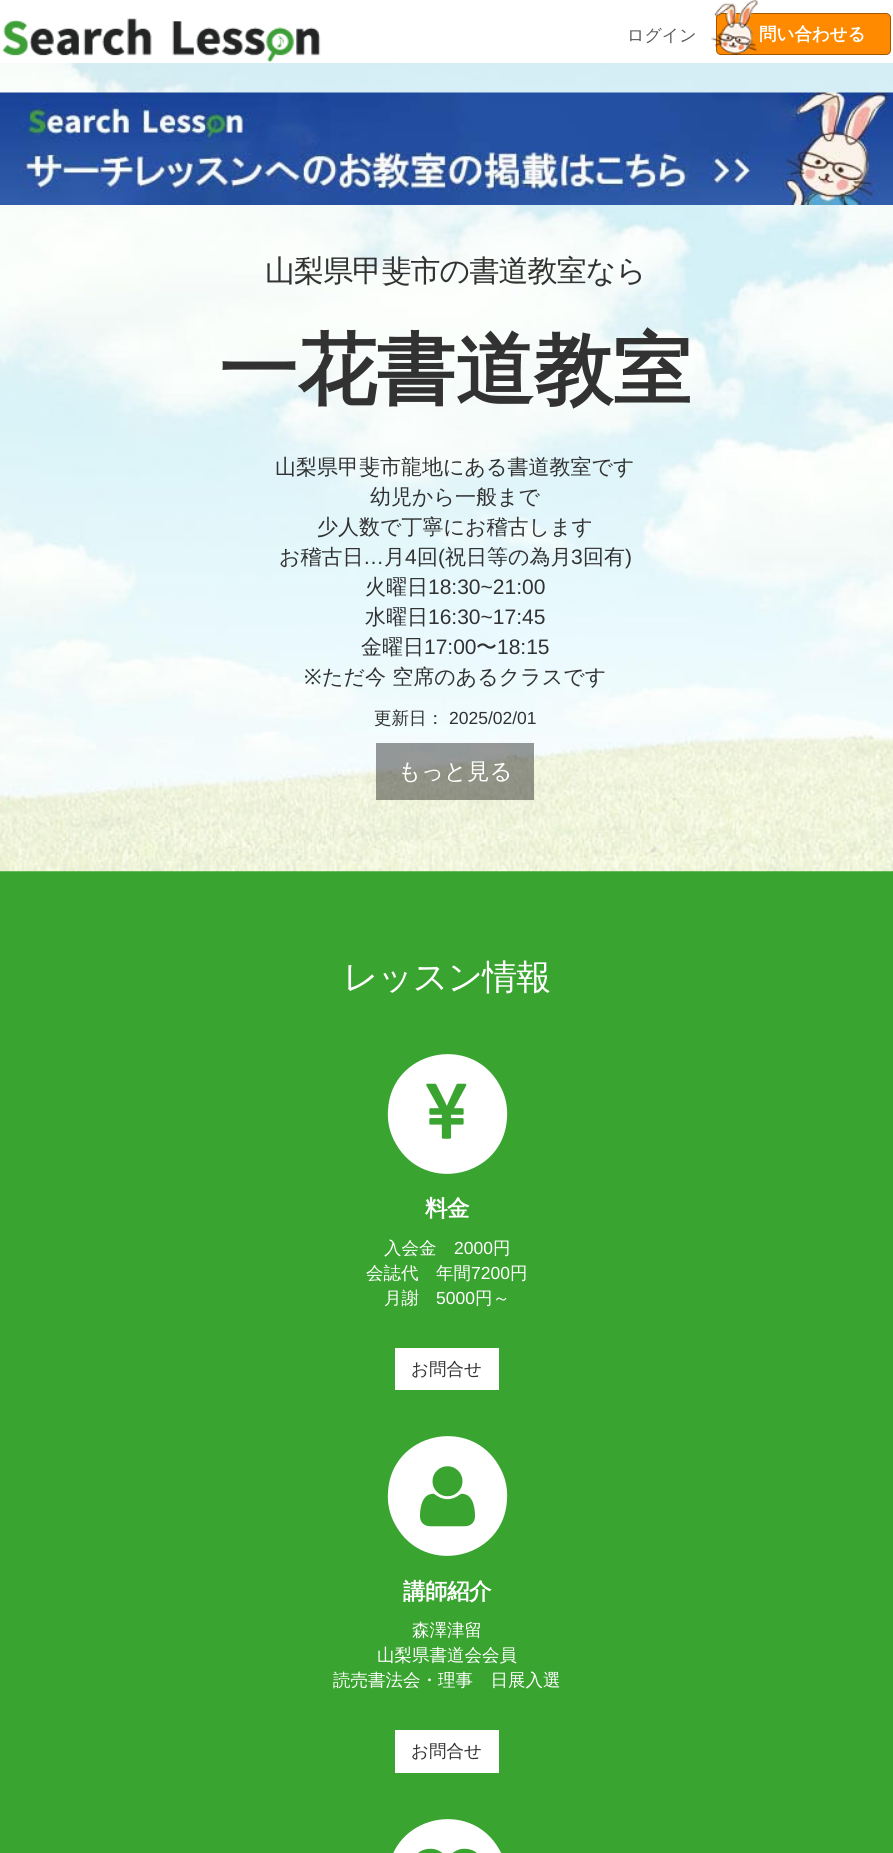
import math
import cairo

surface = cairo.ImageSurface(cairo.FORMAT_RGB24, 893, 1853)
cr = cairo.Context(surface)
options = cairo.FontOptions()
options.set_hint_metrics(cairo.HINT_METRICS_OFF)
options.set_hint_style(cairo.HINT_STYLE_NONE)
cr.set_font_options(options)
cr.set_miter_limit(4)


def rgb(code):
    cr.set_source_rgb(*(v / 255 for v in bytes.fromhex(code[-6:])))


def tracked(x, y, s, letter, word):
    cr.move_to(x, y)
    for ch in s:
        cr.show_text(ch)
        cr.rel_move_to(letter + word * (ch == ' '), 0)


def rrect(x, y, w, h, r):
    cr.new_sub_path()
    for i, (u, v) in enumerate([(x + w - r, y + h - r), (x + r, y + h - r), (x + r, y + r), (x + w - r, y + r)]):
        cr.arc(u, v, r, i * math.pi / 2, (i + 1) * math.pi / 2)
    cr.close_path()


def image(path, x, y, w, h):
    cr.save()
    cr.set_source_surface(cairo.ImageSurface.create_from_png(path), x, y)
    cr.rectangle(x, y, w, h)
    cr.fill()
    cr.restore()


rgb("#39a430")
cr.paint()
rgb("#ffffff")
cr.rectangle(0, 0, 893, 63)
cr.fill()
image("img/1.png", 2, 18, 319, 44)
rgb("#ff8a00")
rrect(716.5, 13.5, 174, 41, 4.5)
cr.fill_preserve()
rgb("#a15700")
cr.set_line_width(1)
cr.stroke()
image("img/2.png", 711, 0, 47, 55)
image("img/3.png", 0, 63, 893, 809)
image("img/4.png", 0, 92, 893, 113)
cr.set_source_rgba(0, 0, 0, 0.4)
cr.rectangle(376, 743, 158, 57)
cr.fill()
rgb("#ffffff")
cr.new_path()
cr.move_to(499, 1084)
cr.curve_to(505, 1094, 508, 1106, 507, 1118)
cr.curve_to(504, 1177, 425, 1195, 396, 1144)
cr.curve_to(390, 1134, 387, 1122, 388, 1110)
cr.curve_to(391, 1051, 470, 1033, 499, 1084)
cr.close_path()
cr.fill()
image("img/5.png", 426, 1083, 41, 56)
cr.rectangle(395, 1348, 104, 42)
cr.fill()
cr.new_path()
cr.move_to(499, 1466)
cr.curve_to(505, 1476, 508, 1488, 507, 1500)
cr.curve_to(504, 1559, 425, 1577, 396, 1526)
cr.curve_to(390, 1516, 387, 1504, 388, 1492)
cr.curve_to(391, 1433, 470, 1415, 499, 1466)
cr.close_path()
cr.fill()
image("img/6.png", 420, 1466, 55, 61)
cr.rectangle(395, 1730, 104, 43)
cr.fill()
cr.new_path()
cr.move_to(499, 1849)
cr.curve_to(505, 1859, 508, 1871, 507, 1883)
cr.curve_to(504, 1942, 425, 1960, 396, 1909)
cr.curve_to(390, 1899, 387, 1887, 388, 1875)
cr.curve_to(391, 1816, 470, 1798, 499, 1849)
cr.close_path()
cr.fill()
image("img/7.png", 418, 1848, 59, 5)
cr.select_font_face("WenQuanYi Zen Hei Medium")
cr.set_font_size(17)
rgb("#595959")
cr.move_to(627, 41)
cr.show_text("ログイン")
cr.select_font_face("WenQuanYi Zen Hei", cairo.FONT_SLANT_NORMAL, cairo.FONT_WEIGHT_BOLD)
cr.set_font_size(17.5)
rgb("#ffffff")
cr.move_to(759, 40)
cr.show_text("問い合わせる")
cr.select_font_face("WenQuanYi Zen Hei Medium")
cr.set_font_size(30)
rgb("#323232")
tracked(265, 281, "山梨県甲斐市の書道教室なら", -0.9, 0)
cr.select_font_face("WenQuanYi Zen Hei", cairo.FONT_SLANT_NORMAL, cairo.FONT_WEIGHT_BOLD)
cr.set_font_size(78.75)
cr.move_to(219, 397)
cr.show_text("一花書道教室")
cr.select_font_face("WenQuanYi Zen Hei Medium")
cr.set_font_size(21)
for x, y, s in [
    (275, 474, "山梨県甲斐市龍地にある書道教室です"),
    (370, 504, "幼児から一般まで"),
    (317, 534, "少人数で丁寧にお稽古します"),
    (279, 564, "お稽古日"),
]:
    cr.move_to(x, y)
    cr.show_text(s)
cr.select_font_face("Liberation Sans")
cr.move_to(363, 564)
cr.show_text("…")
cr.select_font_face("WenQuanYi Zen Hei Medium")
cr.move_to(384, 564)
cr.show_text("月")
cr.select_font_face("Liberation Sans")
cr.move_to(405, 564)
cr.show_text("4")
cr.select_font_face("WenQuanYi Zen Hei Medium")
cr.move_to(417, 564)
cr.show_text("回")
cr.select_font_face("Liberation Sans")
cr.move_to(438, 564)
cr.show_text("(")
cr.select_font_face("WenQuanYi Zen Hei Medium")
cr.move_to(445, 564)
cr.show_text("祝日等の為月")
cr.select_font_face("Liberation Sans")
cr.move_to(571, 564)
cr.show_text("3")
cr.select_font_face("WenQuanYi Zen Hei Medium")
cr.move_to(583, 564)
cr.show_text("回有")
cr.select_font_face("Liberation Sans")
cr.move_to(625, 564)
cr.show_text(")")
cr.select_font_face("WenQuanYi Zen Hei Medium")
cr.move_to(365, 594)
cr.show_text("火曜日")
cr.select_font_face("Liberation Sans")
cr.move_to(428, 594)
cr.show_text("18:30~21:00")
cr.select_font_face("WenQuanYi Zen Hei Medium")
cr.move_to(365, 624)
cr.show_text("水曜日")
cr.select_font_face("Liberation Sans")
cr.move_to(428, 624)
cr.show_text("16:30~17:45")
cr.select_font_face("WenQuanYi Zen Hei Medium")
cr.move_to(361, 654)
cr.show_text("金曜日")
cr.select_font_face("Liberation Sans")
cr.move_to(424, 654)
cr.show_text("17:00")
cr.select_font_face("WenQuanYi Zen Hei Medium")
cr.move_to(476, 654)
cr.show_text("〜")
cr.select_font_face("Liberation Sans")
cr.move_to(497, 654)
cr.show_text("18:15")
cr.select_font_face("Noto Sans")
cr.move_to(304, 684)
cr.show_text("※")
cr.select_font_face("WenQuanYi Zen Hei Medium")
cr.move_to(322, 684)
cr.show_text("ただ今 空席のあるクラスです")
cr.set_font_size(17.5)
cr.move_to(374, 724)
cr.show_text("更新日：")
cr.select_font_face("Liberation Sans")
cr.move_to(449, 724)
cr.show_text("2025/02/01")
cr.select_font_face("WenQuanYi Zen Hei Medium")
cr.set_font_size(22.5)
rgb("#ffffff")
cr.move_to(398, 779)
cr.show_text("もっと見る")
cr.set_font_size(35)
tracked(343, 989, "レッスン情報", -1, 0)
cr.select_font_face("WenQuanYi Zen Hei", cairo.FONT_SLANT_NORMAL, cairo.FONT_WEIGHT_BOLD)
cr.set_font_size(22.5)
tracked(425, 1216, "料金", -0.5, 0)
cr.select_font_face("WenQuanYi Zen Hei Medium")
cr.set_font_size(17.5)
cr.move_to(384, 1254)
cr.show_text("入会金")
cr.select_font_face("Liberation Sans")
cr.move_to(454, 1254)
cr.show_text("2000")
cr.select_font_face("WenQuanYi Zen Hei Medium")
cr.move_to(493, 1254)
cr.show_text("円")
cr.move_to(366, 1279)
cr.show_text("会誌代　年間")
cr.select_font_face("Liberation Sans")
cr.move_to(471, 1279)
cr.show_text("7200")
cr.select_font_face("WenQuanYi Zen Hei Medium")
cr.move_to(510, 1279)
cr.show_text("円")
cr.move_to(384, 1304)
cr.show_text("月謝")
cr.select_font_face("Liberation Sans")
cr.move_to(436, 1304)
cr.show_text("5000")
cr.select_font_face("WenQuanYi Zen Hei Medium")
cr.move_to(475, 1304)
cr.show_text("円～")
rgb("#323232")
cr.move_to(411, 1375)
cr.show_text("お問合せ")
cr.select_font_face("WenQuanYi Zen Hei", cairo.FONT_SLANT_NORMAL, cairo.FONT_WEIGHT_BOLD)
cr.set_font_size(22.5)
rgb("#ffffff")
tracked(403, 1599, "講師紹介", -0.5, 0)
cr.select_font_face("WenQuanYi Zen Hei Medium")
cr.set_font_size(17.5)
for x, y, s in [
    (412, 1636, "森澤津留"),
    (377, 1661, "山梨県書道会会員"),
    (333, 1686, "読売書法会・理事　日展入選"),
]:
    cr.move_to(x, y)
    cr.show_text(s)
rgb("#323232")
cr.move_to(411, 1757)
cr.show_text("お問合せ")
surface.write_to_png("page.png")
